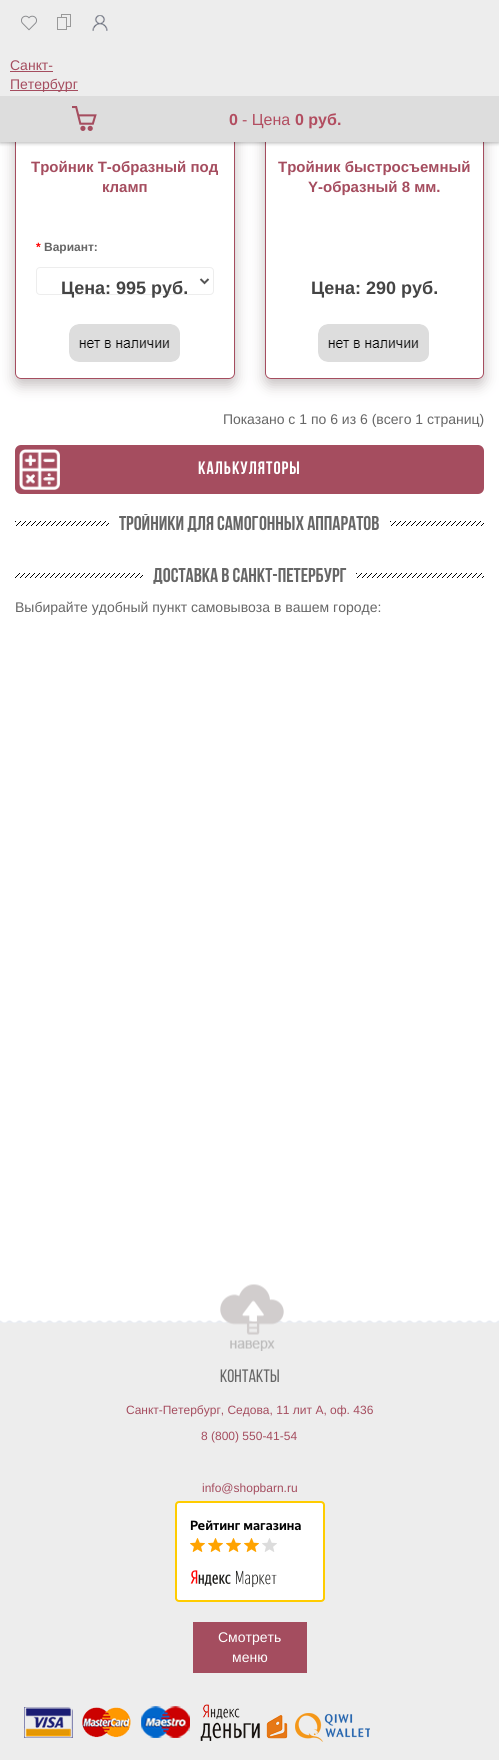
import math
import cairo

surface = cairo.ImageSurface(cairo.FORMAT_RGB24, 499, 1760)
cr = cairo.Context(surface)
options = cairo.FontOptions()
options.set_hint_metrics(cairo.HINT_METRICS_OFF)
options.set_hint_style(cairo.HINT_STYLE_NONE)
cr.set_font_options(options)
cr.set_miter_limit(4)


def rgb(code):
    cr.set_source_rgb(*(v / 255 for v in bytes.fromhex(code[-6:])))


def tracked(x, y, s, letter, word):
    cr.move_to(x, y)
    for ch in s:
        cr.show_text(ch)
        cr.rel_move_to(letter + word * (ch == ' '), 0)


def rrect(x, y, w, h, r):
    cr.new_sub_path()
    for i, (u, v) in enumerate([(x + w - r, y + h - r), (x + r, y + h - r), (x + r, y + r), (x + w - r, y + r)]):
        cr.arc(u, v, r, i * math.pi / 2, (i + 1) * math.pi / 2)
    cr.close_path()


def soft_shadow(x, y, w, h, r, blur, alpha):
    cr.push_group_with_content(cairo.CONTENT_ALPHA)
    cr.set_operator(cairo.OPERATOR_SOURCE)
    for i in range(15, -16, -2):
        e = blur * i / 6
        if min(w, h) + 2 * e > 0:
            cr.set_source_rgba(0, 0, 0, alpha * math.erfc((i - 1) / 8.5) / 2)
            rrect(x - e, y - e, w + 2 * e, h + 2 * e, max(0, min(r + e + blur * .6, min(w, h) / 2 + e)))
            cr.fill()
    cr.mask(cr.pop_group())


def image(path, x, y, w, h):
    cr.save()
    cr.set_source_surface(cairo.ImageSurface.create_from_png(path), x, y)
    cr.rectangle(x, y, w, h)
    cr.fill()
    cr.restore()


rgb("#ffffff")
cr.paint()
cr.save()
cr.set_fill_rule(cairo.FILL_RULE_EVEN_ODD)
cr.new_path()
cr.move_to(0, 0)
cr.line_to(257, 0)
cr.line_to(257, 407)
cr.line_to(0, 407)
cr.close_path()
cr.move_to(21, 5)
cr.line_to(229, 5)
cr.curve_to(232.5, 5, 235, 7.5, 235, 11)
cr.line_to(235, 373)
cr.curve_to(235, 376.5, 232.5, 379, 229, 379)
cr.line_to(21, 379)
cr.curve_to(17.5, 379, 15, 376.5, 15, 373)
cr.line_to(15, 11)
cr.curve_to(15, 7.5, 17.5, 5, 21, 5)
cr.close_path()
cr.clip()
rgb("#c5bfc0")
soft_shadow(15, 11, 220, 374, 6, 7, 1)
cr.restore()
rrect(15.5, 5.5, 219, 373, 5.5)
rgb("#a54d5f")
cr.set_line_width(1)
cr.stroke()
cr.save()
cr.set_fill_rule(cairo.FILL_RULE_EVEN_ODD)
cr.new_path()
cr.move_to(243, 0)
cr.line_to(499, 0)
cr.line_to(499, 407)
cr.line_to(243, 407)
cr.close_path()
cr.move_to(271, 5)
cr.line_to(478, 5)
cr.curve_to(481.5, 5, 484, 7.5, 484, 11)
cr.line_to(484, 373)
cr.curve_to(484, 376.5, 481.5, 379, 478, 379)
cr.line_to(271, 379)
cr.curve_to(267.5, 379, 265, 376.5, 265, 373)
cr.line_to(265, 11)
cr.curve_to(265, 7.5, 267.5, 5, 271, 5)
cr.close_path()
cr.clip()
rgb("#c5bfc0")
soft_shadow(265, 11, 219, 374, 6, 7, 1)
cr.restore()
rrect(265.5, 5.5, 218, 373, 5.5)
cr.stroke()
rgb("#000000")
soft_shadow(0, 1, 499, 142, 0, 2, 0.3)
rgb("#ededed")
cr.rectangle(0, 0, 499, 96)
cr.fill()
image("img/1.png", 21, 15, 16, 16)
image("img/2.png", 57, 14, 14, 16)
image("img/3.png", 92, 15, 16, 16)
for x, y, w, h, color in [
    (10, 71, 43, 1, "#a54d5f"),
    (10, 90, 68, 1, "#a54d5f"),
    (0, 96, 499, 46, "#dddddd"),
]:
    rgb(color)
    cr.rectangle(x, y, w, h)
    cr.fill()
image("img/4.png", 72, 106, 25, 25)
rrect(36.5, 267.5, 177, 27, 3.5)
rgb("#ededed")
cr.stroke()
cr.new_path()
cr.move_to(200.5, 279)
cr.line_to(204.5, 283)
cr.line_to(208.5, 279)
rgb("#555555")
cr.set_line_width(2)
cr.stroke()
image("img/5.png", 69, 324, 111, 38)
image("img/5.png", 318, 324, 111, 38)
rgb("#a54d5f")
rrect(15, 445, 469, 49, 6)
cr.fill()
image("img/6.png", 19, 449, 41, 41)
image("img/7.png", 15, 521, 94, 5)
image("img/7.png", 390, 521, 94, 5)
image("img/8.png", 15, 573, 128, 5)
image("img/9.png", 356, 573, 128, 5)
image("img/10.png", 0, 1320, 499, 3)
rgb("#ededed")
cr.rectangle(0, 1323, 499, 437)
cr.fill()
image("img/11.png", 220, 1284, 64, 67)
image("img/12.png", 175, 1501, 150, 101)
rgb("#a44d5f")
cr.rectangle(193, 1622, 114, 51)
cr.fill()
image("img/13.png", 24, 1704, 346, 38)
cr.select_font_face("Liberation Sans")
cr.set_font_size(14)
rgb("#a54d5f")
cr.move_to(10, 70)
cr.show_text("Санкт-")
cr.move_to(10, 89)
cr.show_text("Петербург")
cr.select_font_face("Liberation Sans", cairo.FONT_SLANT_NORMAL, cairo.FONT_WEIGHT_BOLD)
cr.set_font_size(16)
rgb("#b24d60")
cr.move_to(229, 125)
cr.show_text("0")
cr.select_font_face("Liberation Sans")
cr.move_to(242, 125)
cr.show_text("- Цена")
cr.select_font_face("Liberation Sans", cairo.FONT_SLANT_NORMAL, cairo.FONT_WEIGHT_BOLD)
cr.move_to(295, 125)
cr.show_text("0 руб.")
cr.set_font_size(15)
rgb("#a54d5f")
cr.move_to(31, 172)
cr.show_text("Тройник Т-образный под")
cr.move_to(102, 192)
cr.show_text("кламп")
cr.set_font_size(12)
rgb("#ff0000")
cr.move_to(36, 251)
cr.show_text("*")
rgb("#666666")
cr.move_to(44, 251)
cr.show_text("Вариант:")
cr.set_font_size(18)
rgb("#444444")
cr.move_to(61, 294)
cr.show_text("Цена: 995 руб.")
cr.set_font_size(15)
rgb("#a54d5f")
cr.move_to(278, 172)
cr.show_text("Тройник быстросъемный")
cr.move_to(308, 192)
cr.show_text("Y-образный 8 мм.")
cr.set_font_size(18)
rgb("#444444")
cr.move_to(311, 294)
cr.show_text("Цена: 290 руб.")
cr.select_font_face("Liberation Sans")
cr.set_font_size(14)
rgb("#666666")
cr.move_to(223, 424)
cr.show_text("Показано с 1 по 6 из 6 (всего 1 страниц)")
cr.select_font_face("Bebas Neue", cairo.FONT_SLANT_NORMAL, cairo.FONT_WEIGHT_BOLD)
cr.set_font_size(18)
rgb("#ffffff")
tracked(198, 474, "КАЛЬКУЛЯТОРЫ", 1, 0)
cr.save()
cr.rectangle(15, 514, 469, 22)
cr.clip()
cr.set_font_size(20)
rgb("#666666")
cr.move_to(119, 530)
cr.show_text("Тройники для самогонных аппаратов")
cr.restore()
cr.set_font_size(20)
rgb("#666666")
cr.move_to(153, 582)
cr.show_text("Доставка в Санкт-Петербург")
cr.select_font_face("Liberation Sans")
cr.set_font_size(14)
cr.move_to(15, 612)
cr.show_text("Выбирайте удобный пункт самовывоза в вашем городе:")
cr.select_font_face("Bebas Neue")
cr.set_font_size(18)
cr.move_to(220, 1382)
cr.show_text("Контакты")
cr.select_font_face("Liberation Sans")
cr.set_font_size(12)
rgb("#a54d5f")
for x, y, s in [
    (126, 1414, "Санкт-Петербург, Седова, 11 лит А, оф. 436"),
    (201, 1440, "8 (800) 550-41-54"),
    (202, 1492, "info@shopbarn.ru"),
]:
    cr.move_to(x, y)
    cr.show_text(s)
cr.set_font_size(14)
rgb("#ffffff")
cr.move_to(218, 1642)
cr.show_text("Смотреть")
cr.move_to(232, 1662)
cr.show_text("меню")
surface.write_to_png("page.png")
